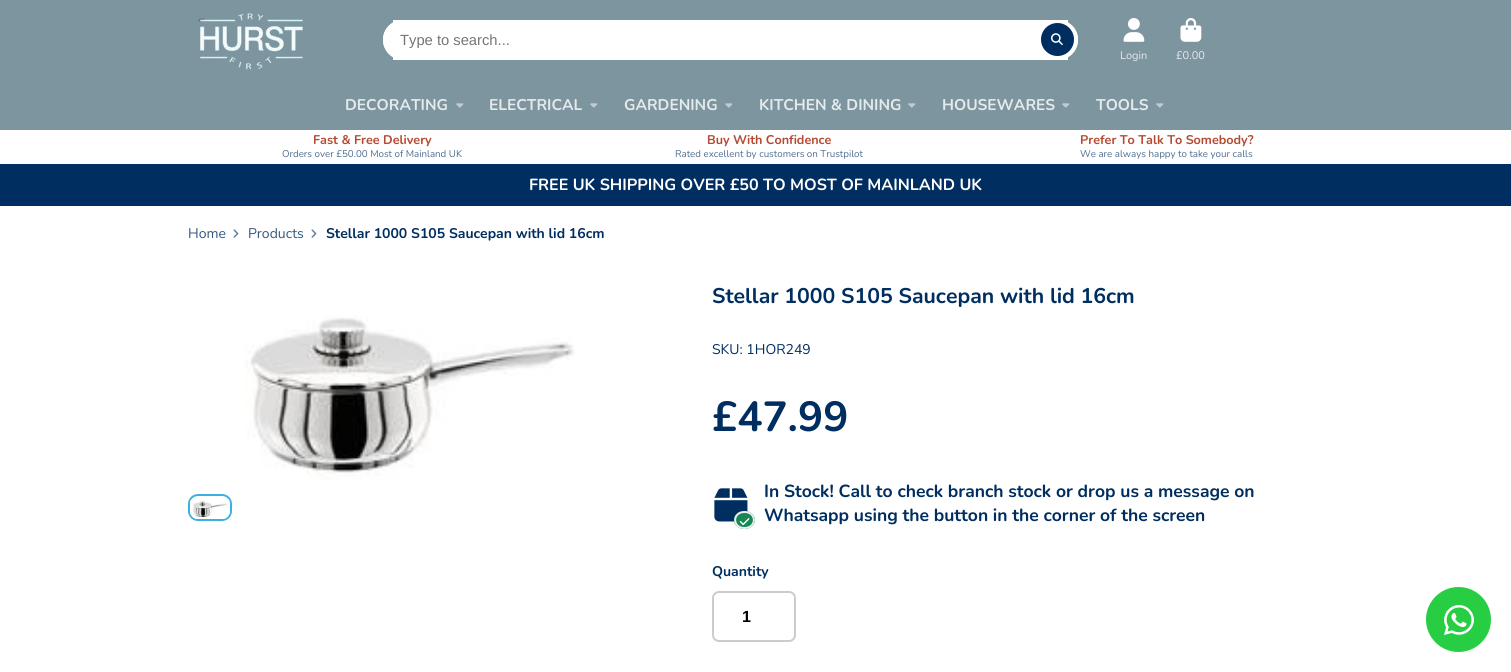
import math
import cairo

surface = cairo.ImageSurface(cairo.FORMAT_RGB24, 1511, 672)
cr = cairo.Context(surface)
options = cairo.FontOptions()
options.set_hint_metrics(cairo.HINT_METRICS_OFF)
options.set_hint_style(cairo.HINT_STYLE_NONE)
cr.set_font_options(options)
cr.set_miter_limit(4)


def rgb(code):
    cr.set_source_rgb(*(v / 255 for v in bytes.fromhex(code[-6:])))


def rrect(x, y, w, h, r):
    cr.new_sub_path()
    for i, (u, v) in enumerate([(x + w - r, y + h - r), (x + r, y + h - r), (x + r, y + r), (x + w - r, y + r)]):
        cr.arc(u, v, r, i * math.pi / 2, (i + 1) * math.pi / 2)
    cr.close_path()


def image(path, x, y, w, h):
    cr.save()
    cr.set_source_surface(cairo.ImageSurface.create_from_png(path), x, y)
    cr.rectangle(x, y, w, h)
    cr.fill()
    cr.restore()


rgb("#ffffff")
cr.paint()
rgb("#7d959f")
cr.rectangle(0, 0, 1511, 130)
cr.fill()
image("img/1.png", 198, 13, 105, 57)
rgb("#ffffff")
rrect(383, 20, 695, 40, 20)
cr.fill()
cr.rectangle(393, 20, 675, 40)
cr.fill()
rrect(383, 20, 695, 39, 19.5)
cr.fill()
rgb("#002e60")
cr.arc(1057.5, 39.5, 16.5, 0, 2 * math.pi)
cr.fill()
image("img/2.png", 1051, 33, 12, 12)
image("img/3.png", 1123, 18, 22, 24)
image("img/4.png", 1180, 18, 22, 24)
image("img/5.png", 456, 103, 8, 5)
image("img/5.png", 590, 103, 8, 5)
image("img/5.png", 725, 103, 8, 5)
image("img/5.png", 908, 103, 8, 5)
image("img/5.png", 1062, 103, 8, 5)
image("img/5.png", 1156, 103, 8, 5)
cr.rectangle(0, 164, 1511, 42)
cr.fill()
image("img/6.png", 233, 229, 6, 9)
image("img/6.png", 311, 229, 6, 9)
image("img/7.png", 245, 315, 330, 165)
rrect(189, 495, 42, 25, 9)
rgb("#3eafe1")
cr.stroke()
image("img/8.png", 190, 499, 40, 20)
image("img/9.png", 714, 488, 34, 34)
rgb("#198754")
cr.new_path()
cr.move_to(744.5, 511)
cr.curve_to(750.5, 511, 755, 515, 755, 520)
cr.curve_to(755, 525, 750.5, 529, 744.5, 529)
cr.curve_to(738.5, 529, 734, 525, 734, 520)
cr.curve_to(734, 515, 738.5, 511, 744.5, 511)
cr.close_path()
cr.fill()
cr.new_path()
cr.move_to(744.5, 512)
cr.curve_to(757, 512, 757, 528, 744.5, 528)
cr.curve_to(732, 528, 732, 512, 744.5, 512)
cr.close_path()
rgb("#ededed")
cr.stroke()
image("img/10.png", 739, 518, 11, 7)
rrect(713, 592, 82, 49, 6)
rgb("#cccccc")
cr.stroke()
rgb("#27ce43")
cr.arc(1458.5, 619.5, 32.5, 0, 2 * math.pi)
cr.fill()
image("img/11.png", 1444, 605, 30, 30)
cr.select_font_face("Liberation Sans")
cr.set_font_size(14.75)
rgb("#757575")
cr.move_to(400, 45)
cr.show_text("Type to search...")
cr.select_font_face("Nunito")
cr.set_font_size(11)
rgb("#e5eaec")
cr.move_to(1120, 59)
cr.show_text("Login")
cr.move_to(1176, 59)
cr.show_text("£0.00")
cr.select_font_face("Nunito", cairo.FONT_SLANT_NORMAL, cairo.FONT_WEIGHT_BOLD)
cr.set_font_size(15.5)
for x, y, s in [
    (345, 110, "DECORATING"),
    (489, 110, "ELECTRICAL"),
    (624, 110, "GARDENING"),
    (759, 110, "KITCHEN & DINING"),
    (942, 110, "HOUSEWARES"),
    (1096, 110, "TOOLS"),
]:
    cr.move_to(x, y)
    cr.show_text(s)
cr.set_font_size(12.6)
rgb("#b44a32")
cr.move_to(313, 144)
cr.show_text("Fast & Free Delivery")
cr.select_font_face("Nunito")
cr.set_font_size(9.75)
rgb("#4d6d90")
cr.move_to(282, 157)
cr.show_text("Orders over £50.00 Most of Mainland UK")
cr.select_font_face("Nunito", cairo.FONT_SLANT_NORMAL, cairo.FONT_WEIGHT_BOLD)
cr.set_font_size(12.6)
rgb("#b44a32")
cr.move_to(707, 144)
cr.show_text("Buy With Confidence")
cr.select_font_face("Nunito")
cr.set_font_size(9.75)
rgb("#4d6d90")
cr.move_to(675, 157)
cr.show_text("Rated excellent by customers on Trustpilot")
cr.select_font_face("Nunito", cairo.FONT_SLANT_NORMAL, cairo.FONT_WEIGHT_BOLD)
cr.set_font_size(12.6)
rgb("#b44a32")
cr.move_to(1080, 144)
cr.show_text("Prefer To Talk To Somebody?")
cr.select_font_face("Nunito")
cr.set_font_size(9.75)
rgb("#4d6d90")
cr.move_to(1080, 157)
cr.show_text("We are always happy to take your calls")
cr.select_font_face("Nunito", cairo.FONT_SLANT_NORMAL, cairo.FONT_WEIGHT_BOLD)
cr.set_font_size(16.1)
rgb("#ffffff")
cr.move_to(529, 190)
cr.show_text("FREE UK SHIPPING OVER £50 TO MOST OF MAINLAND UK")
cr.select_font_face("Nunito")
cr.set_font_size(14)
rgb("#335880")
cr.move_to(188, 238)
cr.show_text("Home")
cr.move_to(248, 238)
cr.show_text("Products")
cr.select_font_face("Nunito", cairo.FONT_SLANT_NORMAL, cairo.FONT_WEIGHT_BOLD)
rgb("#002e60")
cr.move_to(326, 238)
cr.show_text("Stellar 1000 S105 Saucepan with lid 16cm")
cr.set_font_size(21.25)
cr.move_to(712, 303)
cr.show_text("Stellar 1000 S105 Saucepan with lid 16cm")
cr.select_font_face("Nunito")
cr.set_font_size(14)
cr.move_to(712, 354)
cr.show_text("SKU: 1HOR249")
cr.select_font_face("Nunito", cairo.FONT_SLANT_NORMAL, cairo.FONT_WEIGHT_BOLD)
cr.set_font_size(42)
cr.move_to(712, 431)
cr.show_text("£47.99")
cr.set_font_size(17.5)
cr.move_to(764, 497)
cr.show_text("In Stock! Call to check branch stock or drop us a message on")
cr.move_to(764, 521)
cr.show_text("Whatsapp using the button in the corner of the screen")
cr.set_font_size(14)
cr.move_to(712, 576)
cr.show_text("Quantity")
cr.select_font_face("Liberation Sans", cairo.FONT_SLANT_NORMAL, cairo.FONT_WEIGHT_BOLD)
cr.set_font_size(16.1)
rgb("#000000")
cr.move_to(742, 622)
cr.show_text("1")
surface.write_to_png("page.png")
